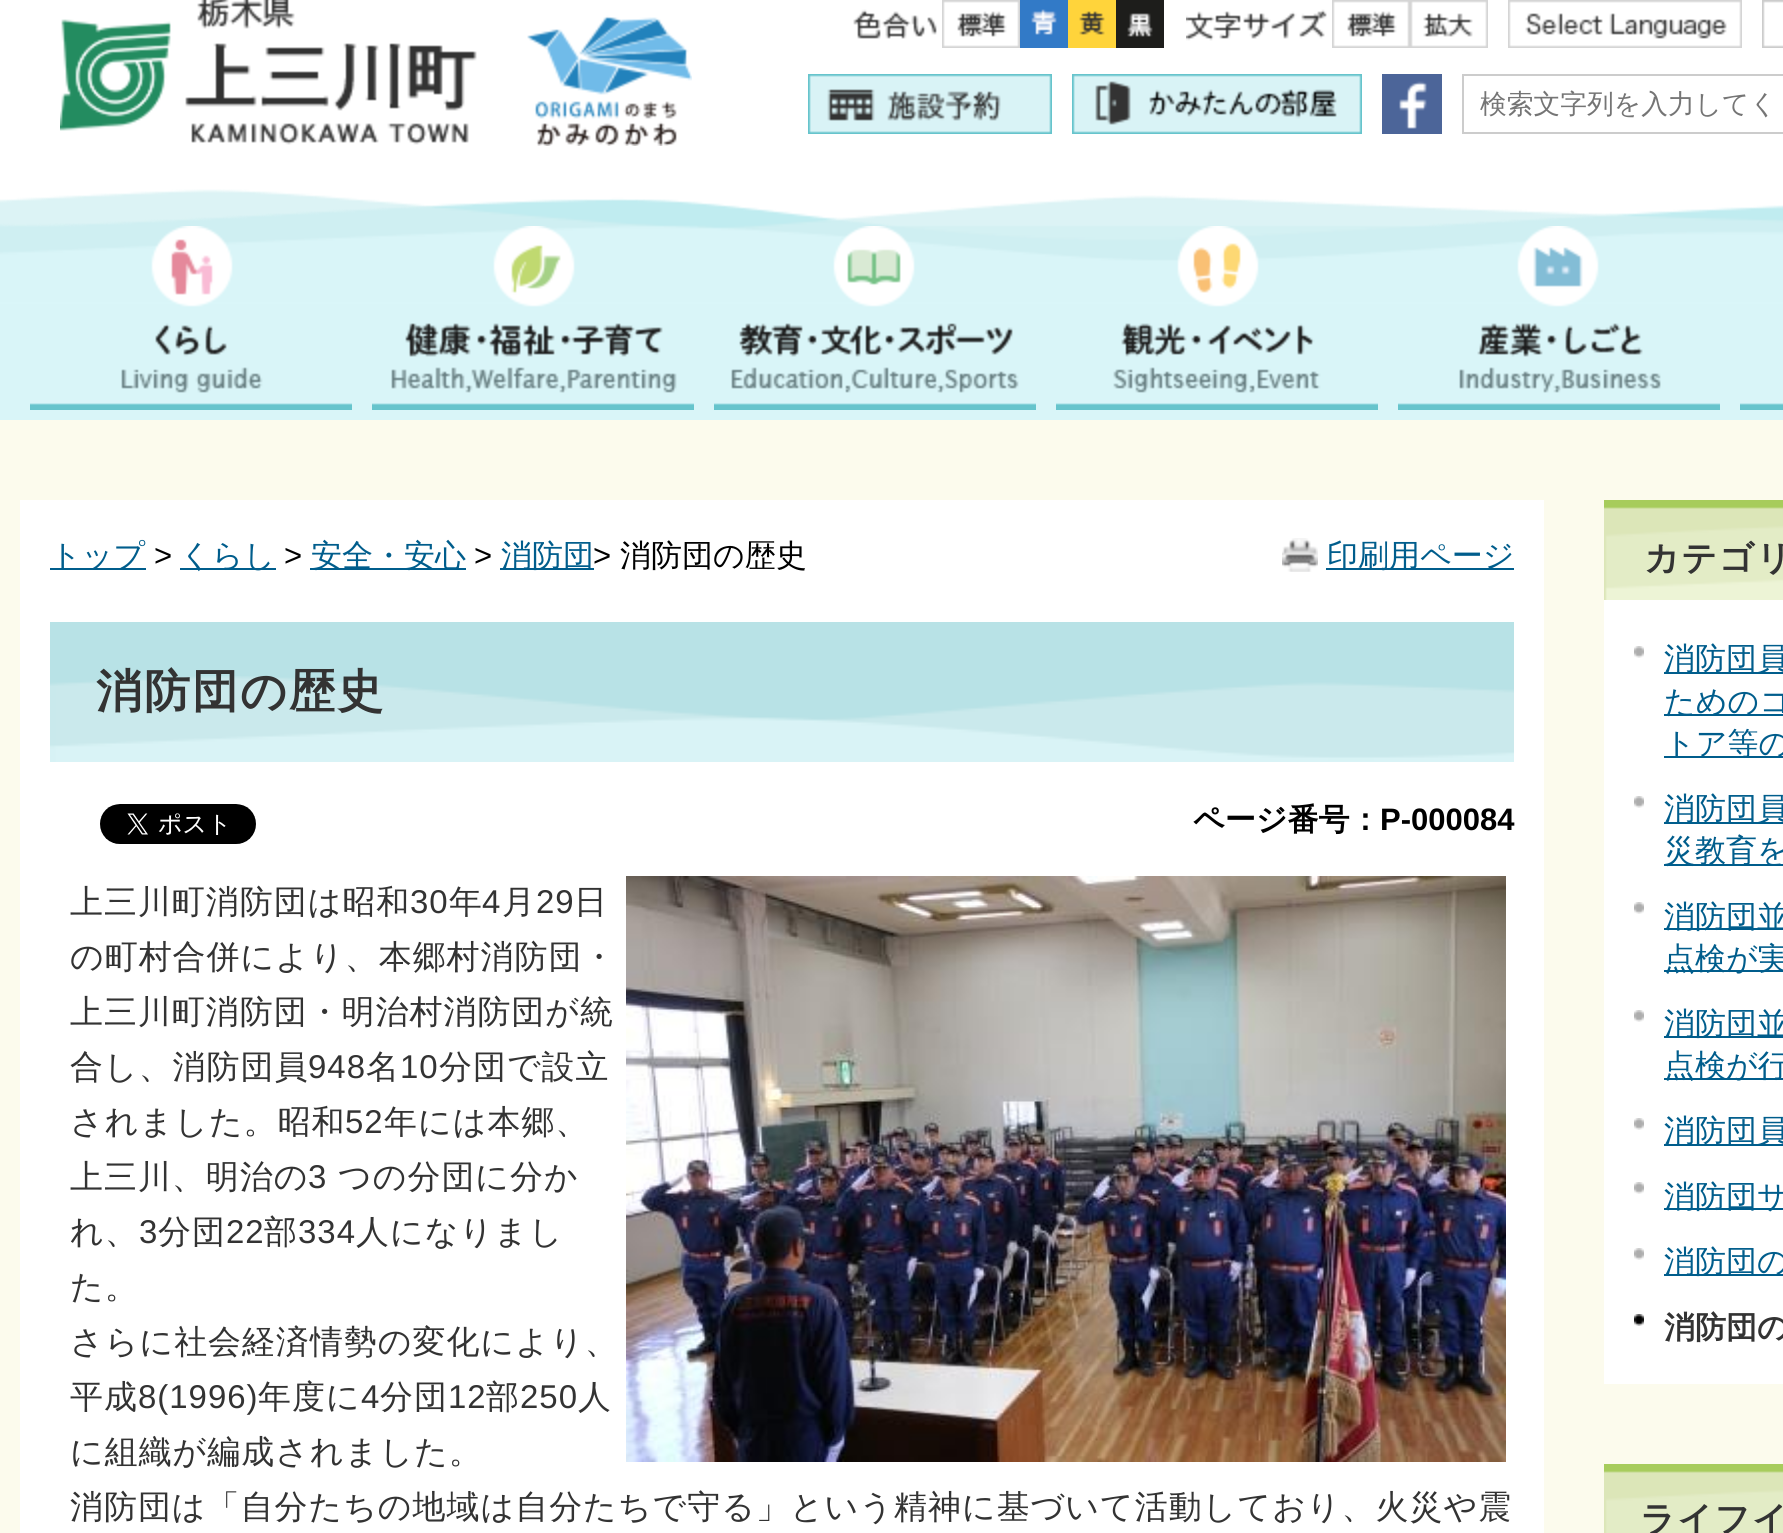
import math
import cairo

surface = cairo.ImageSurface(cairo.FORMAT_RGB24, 1783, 1533)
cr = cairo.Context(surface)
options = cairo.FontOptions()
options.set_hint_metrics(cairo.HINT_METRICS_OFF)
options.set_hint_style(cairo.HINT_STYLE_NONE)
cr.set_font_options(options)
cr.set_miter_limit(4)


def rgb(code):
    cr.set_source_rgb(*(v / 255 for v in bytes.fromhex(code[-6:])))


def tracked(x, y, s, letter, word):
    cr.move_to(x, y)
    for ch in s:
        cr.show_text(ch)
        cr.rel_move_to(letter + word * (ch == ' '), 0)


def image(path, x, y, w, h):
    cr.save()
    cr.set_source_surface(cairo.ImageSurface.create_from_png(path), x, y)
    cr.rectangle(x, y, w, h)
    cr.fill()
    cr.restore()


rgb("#fcfbed")
cr.paint()
rgb("#ffffff")
cr.rectangle(0, 0, 1783, 227)
cr.fill()
image("img/1.png", 60, 0, 632, 146)
image("img/2.png", 1508, 0, 234, 48)
image("img/3.png", 1762, 0, 21, 48)
image("img/4.png", 808, 74, 244, 60)
image("img/5.png", 1072, 74, 290, 60)
image("img/6.png", 1382, 74, 60, 60)
image("img/7.png", 853, 9, 84, 30)
image("img/8.png", 942, 0, 78, 48)
image("img/9.png", 1020, 0, 48, 48)
image("img/10.png", 1068, 0, 48, 48)
image("img/11.png", 1116, 0, 48, 48)
image("img/12.png", 1186, 9, 141, 32)
image("img/8.png", 1332, 0, 78, 48)
image("img/13.png", 1410, 0, 78, 48)
cr.rectangle(1463, 75, 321, 58)
rgb("#cccccc")
cr.stroke()
image("img/14.png", 0, 189, 1783, 231)
image("img/15.png", 30, 226, 322, 184)
image("img/16.png", 372, 226, 322, 184)
image("img/17.png", 714, 226, 322, 184)
image("img/18.png", 1056, 226, 322, 184)
image("img/19.png", 1398, 226, 322, 184)
image("img/20.png", 1740, 403, 43, 7)
for x, y, w, h, color in [
    (20, 500, 1524, 1033, "#ffffff"),
    (50, 568, 96, 2, "#005d8c"),
    (180, 568, 96, 2, "#005d8c"),
    (310, 568, 156, 2, "#005d8c"),
    (500, 568, 94, 2, "#005d8c"),
]:
    rgb(color)
    cr.rectangle(x, y, w, h)
    cr.fill()
image("img/21.png", 1282, 538, 36, 34)
cr.rectangle(1326, 568, 188, 2)
cr.fill()
rgb("#b8e2e6")
cr.rectangle(50, 622, 1464, 54)
cr.fill()
image("img/22.png", 50, 676, 1464, 86)
image("img/23.png", 100, 804, 156, 40)
image("img/24.png", 626, 876, 880, 586)
rgb("#ffffff")
cr.rectangle(1604, 600, 179, 784)
cr.fill()
image("img/25.png", 1604, 500, 179, 100)
image("img/26.png", 1634, 646, 10, 12)
for x, y, w, h, color in [
    (1664, 672, 119, 2, "#005d8c"),
    (1664, 714, 119, 2, "#005d8c"),
    (1664, 756, 119, 2, "#005d8c"),
]:
    rgb(color)
    cr.rectangle(x, y, w, h)
    cr.fill()
image("img/26.png", 1634, 796, 10, 12)
cr.rectangle(1664, 822, 119, 2)
cr.fill()
cr.rectangle(1664, 864, 119, 2)
cr.fill()
image("img/26.png", 1634, 902, 10, 12)
cr.rectangle(1664, 928, 119, 2)
cr.fill()
cr.rectangle(1664, 970, 119, 2)
cr.fill()
image("img/26.png", 1634, 1010, 10, 12)
cr.rectangle(1664, 1036, 119, 2)
cr.fill()
cr.rectangle(1664, 1078, 119, 2)
cr.fill()
image("img/26.png", 1634, 1118, 10, 12)
cr.rectangle(1664, 1144, 119, 2)
cr.fill()
image("img/26.png", 1634, 1182, 10, 12)
cr.rectangle(1664, 1208, 119, 2)
cr.fill()
image("img/26.png", 1634, 1248, 10, 12)
cr.rectangle(1664, 1274, 119, 2)
cr.fill()
image("img/27.png", 1634, 1314, 10, 12)
image("img/28.png", 1604, 1464, 179, 69)
cr.select_font_face("WenQuanYi Zen Hei Medium")
cr.set_font_size(26.75)
rgb("#757575")
cr.move_to(1480, 113)
cr.show_text("検索文字列を入力してく")
cr.set_font_size(31)
rgb("#005d8c")
cr.move_to(50, 566)
cr.show_text("トップ")
cr.select_font_face("Liberation Sans")
rgb("#000000")
cr.move_to(154, 566)
cr.show_text(">")
cr.select_font_face("WenQuanYi Zen Hei Medium")
rgb("#005d8c")
cr.move_to(180, 566)
cr.show_text("くらし")
cr.select_font_face("Liberation Sans")
rgb("#000000")
cr.move_to(284, 566)
cr.show_text(">")
cr.select_font_face("WenQuanYi Zen Hei Medium")
rgb("#005d8c")
cr.move_to(311, 566)
cr.show_text("安全・安心")
cr.select_font_face("Liberation Sans")
rgb("#000000")
cr.move_to(474, 566)
cr.show_text(">")
cr.select_font_face("WenQuanYi Zen Hei Medium")
rgb("#005d8c")
cr.move_to(501, 566)
cr.show_text("消防団")
cr.select_font_face("Liberation Sans")
rgb("#000000")
cr.move_to(593, 566)
cr.show_text(">")
cr.select_font_face("WenQuanYi Zen Hei Medium")
cr.move_to(620, 566)
cr.show_text("消防団の歴史")
rgb("#005d8c")
cr.move_to(1327, 566)
cr.show_text("印刷用ページ")
cr.select_font_face("WenQuanYi Zen Hei", cairo.FONT_SLANT_NORMAL, cairo.FONT_WEIGHT_BOLD)
cr.set_font_size(46)
rgb("#333333")
tracked(96, 707, "消防団の歴史", 2, 0)
cr.set_font_size(31)
rgb("#000000")
cr.move_to(1193, 830)
cr.show_text("ページ番号：")
cr.select_font_face("Liberation Sans", cairo.FONT_SLANT_NORMAL, cairo.FONT_WEIGHT_BOLD)
cr.move_to(1380, 830)
cr.show_text("P-000084")
cr.select_font_face("WenQuanYi Zen Hei Medium")
cr.set_font_size(32.95)
rgb("#333333")
tracked(70, 913, "上三川町消防団は昭和", 1, 0)
cr.select_font_face("Liberation Sans")
tracked(410, 913, "30", 1, 0)
cr.select_font_face("WenQuanYi Zen Hei Medium")
tracked(449, 913, "年", 1, 0)
cr.select_font_face("Liberation Sans")
tracked(482, 913, "4", 1, 0)
cr.select_font_face("WenQuanYi Zen Hei Medium")
tracked(502, 913, "月", 1, 0)
cr.select_font_face("Liberation Sans")
tracked(536, 913, "29", 1, 0)
cr.select_font_face("WenQuanYi Zen Hei Medium")
for x, y, s in [
    (574, 913, "日"),
    (70, 968, "の町村合併により、本郷村消防団・"),
    (70, 1023, "上三川町消防団・明治村消防団が統"),
    (70, 1078, "合し、消防団員"),
]:
    tracked(x, y, s, 1, 0)
cr.select_font_face("Liberation Sans")
tracked(308, 1078, "948", 1, 0)
cr.select_font_face("WenQuanYi Zen Hei Medium")
tracked(366, 1078, "名", 1, 0)
cr.select_font_face("Liberation Sans")
tracked(400, 1078, "10", 1, 0)
cr.select_font_face("WenQuanYi Zen Hei Medium")
tracked(439, 1078, "分団で設立", 1, 0)
tracked(70, 1133, "されました。昭和", 1, 0)
cr.select_font_face("Liberation Sans")
tracked(345, 1133, "52", 1, 0)
cr.select_font_face("WenQuanYi Zen Hei Medium")
tracked(384, 1133, "年には本郷、", 1, 0)
tracked(70, 1188, "上三川、明治の", 1, 0)
cr.select_font_face("Liberation Sans")
tracked(308, 1188, "3", 1, 0)
cr.select_font_face("WenQuanYi Zen Hei Medium")
tracked(338, 1188, "つの分団に分か", 1, 0)
tracked(70, 1243, "れ、", 1, 0)
cr.select_font_face("Liberation Sans")
tracked(139, 1243, "3", 1, 0)
cr.select_font_face("WenQuanYi Zen Hei Medium")
tracked(158, 1243, "分団", 1, 0)
cr.select_font_face("Liberation Sans")
tracked(226, 1243, "22", 1, 0)
cr.select_font_face("WenQuanYi Zen Hei Medium")
tracked(264, 1243, "部", 1, 0)
cr.select_font_face("Liberation Sans")
tracked(298, 1243, "334", 1, 0)
cr.select_font_face("WenQuanYi Zen Hei Medium")
for x, y, s in [
    (356, 1243, "人になりまし"),
    (70, 1298, "た。"),
    (70, 1353, "さらに社会経済情勢の変化により、"),
    (70, 1408, "平成"),
]:
    tracked(x, y, s, 1, 0)
cr.select_font_face("Liberation Sans")
tracked(138, 1408, "8(1996)", 1, 0)
cr.select_font_face("WenQuanYi Zen Hei Medium")
tracked(258, 1408, "年度に", 1, 0)
cr.select_font_face("Liberation Sans")
tracked(361, 1408, "4", 1, 0)
cr.select_font_face("WenQuanYi Zen Hei Medium")
tracked(380, 1408, "分団", 1, 0)
cr.select_font_face("Liberation Sans")
tracked(448, 1408, "12", 1, 0)
cr.select_font_face("WenQuanYi Zen Hei Medium")
tracked(486, 1408, "部", 1, 0)
cr.select_font_face("Liberation Sans")
tracked(520, 1408, "250", 1, 0)
cr.select_font_face("WenQuanYi Zen Hei Medium")
for x, y, s in [
    (578, 1408, "人"),
    (70, 1463, "に組織が編成されました。"),
    (70, 1518, "消防団は「自分たちの地域は自分たちで守る」という精神に基づいて活動しており、火災や震"),
]:
    tracked(x, y, s, 1, 0)
cr.select_font_face("WenQuanYi Zen Hei", cairo.FONT_SLANT_NORMAL, cairo.FONT_WEIGHT_BOLD)
cr.set_font_size(35)
tracked(1644, 570, "カテゴリ", 1.5, 0)
cr.select_font_face("WenQuanYi Zen Hei Medium")
cr.set_font_size(31)
rgb("#005d8c")
for x, y, s in [
    (1664, 669, "消防団員"),
    (1664, 712, "ためのコ"),
    (1664, 754, "トア等の"),
    (1664, 819, "消防団員"),
    (1664, 861, "災教育を"),
    (1664, 927, "消防団並"),
    (1664, 969, "点検が実"),
    (1664, 1034, "消防団並"),
    (1664, 1076, "点検が行"),
    (1664, 1141, "消防団員"),
    (1664, 1207, "消防団サ"),
    (1664, 1272, "消防団の"),
]:
    cr.move_to(x, y)
    cr.show_text(s)
cr.select_font_face("WenQuanYi Zen Hei", cairo.FONT_SLANT_NORMAL, cairo.FONT_WEIGHT_BOLD)
rgb("#333333")
cr.move_to(1664, 1338)
cr.show_text("消防団の")
cr.set_font_size(35)
tracked(1640, 1531, "ライフイ", 1.5, 0)
surface.write_to_png("page.png")
